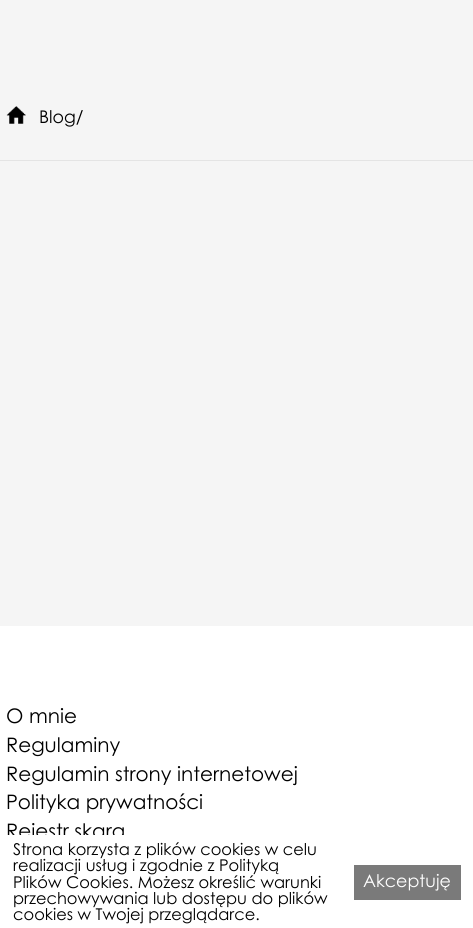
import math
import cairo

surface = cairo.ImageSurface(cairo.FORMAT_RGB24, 473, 928)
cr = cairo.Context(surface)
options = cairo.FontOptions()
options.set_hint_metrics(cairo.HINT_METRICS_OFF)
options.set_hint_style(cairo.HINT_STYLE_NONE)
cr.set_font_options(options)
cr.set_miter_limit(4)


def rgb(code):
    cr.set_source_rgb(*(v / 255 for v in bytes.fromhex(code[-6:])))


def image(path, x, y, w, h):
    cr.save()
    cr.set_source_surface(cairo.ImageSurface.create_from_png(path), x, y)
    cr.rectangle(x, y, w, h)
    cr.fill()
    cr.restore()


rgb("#f5f5f5")
cr.paint()
rgb("#e4e4e4")
cr.rectangle(0, 160, 473, 1)
cr.fill()
image("img/1.png", 6, 106, 20, 18)
rgb("#ffffff")
cr.rectangle(0, 626, 473, 209)
cr.fill()
cr.select_font_face("Century Gothic")
cr.set_font_size(17.5)
rgb("#000000")
cr.move_to(39, 123)
cr.show_text("Blog/")
cr.set_font_size(20)
for x, y, s in [
    (6, 723, "O mnie"),
    (6, 752, "Regulaminy"),
    (6, 781, "Regulamin strony internetowej"),
    (6, 809, "Polityka prywatności"),
    (6, 838, "Rejestr skarg"),
]:
    cr.move_to(x, y)
    cr.show_text(s)
rgb("#ffffff")
cr.rectangle(0, 835, 473, 93)
cr.fill()
cr.set_font_size(16.25)
rgb("#000000")
for x, y, s in [
    (13, 855, "Strona korzysta z plików cookies w celu"),
    (13, 871, "realizacji usług i zgodnie z Polityką"),
    (13, 888, "Plików Cookies. Możesz określić warunki"),
    (13, 904, "przechowywania lub dostępu do plików"),
    (13, 920, "cookies w Twojej przeglądarce."),
]:
    cr.move_to(x, y)
    cr.show_text(s)
rgb("#7a7a7a")
cr.rectangle(354, 865, 107, 35)
cr.fill()
cr.set_font_size(17.5)
rgb("#ffffff")
cr.move_to(363, 887)
cr.show_text("Akceptuję")
surface.write_to_png("page.png")
